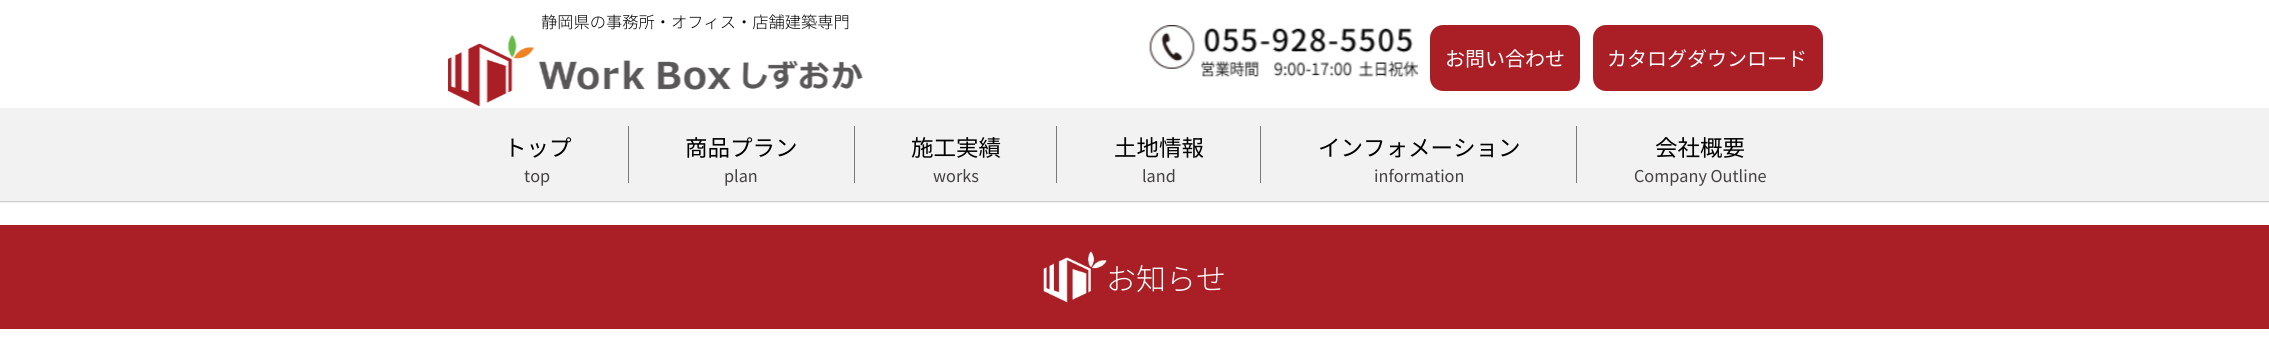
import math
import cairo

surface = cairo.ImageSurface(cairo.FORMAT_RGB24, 2269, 349)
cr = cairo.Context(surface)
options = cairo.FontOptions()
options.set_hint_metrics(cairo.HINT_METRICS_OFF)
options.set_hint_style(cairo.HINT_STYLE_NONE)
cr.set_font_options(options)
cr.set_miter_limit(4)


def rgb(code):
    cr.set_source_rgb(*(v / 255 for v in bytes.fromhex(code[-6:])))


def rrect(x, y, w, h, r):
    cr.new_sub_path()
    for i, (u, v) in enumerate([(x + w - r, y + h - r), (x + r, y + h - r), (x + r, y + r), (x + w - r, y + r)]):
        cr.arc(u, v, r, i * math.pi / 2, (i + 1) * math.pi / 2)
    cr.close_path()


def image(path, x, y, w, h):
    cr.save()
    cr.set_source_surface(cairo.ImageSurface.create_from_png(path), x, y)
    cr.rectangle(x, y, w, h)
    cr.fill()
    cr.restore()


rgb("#ffffff")
cr.paint()
image("img/1.png", 448, 35, 415, 72)
image("img/2.png", 1149, 25, 269, 53)
rgb("#a91f25")
rrect(1430, 25, 150, 66, 13)
cr.fill()
rrect(1593, 25, 230, 66, 13)
cr.fill()
for x, y, w, h, color in [
    (0, 108, 2269, 95, "#f2f2f2"),
    (0, 201, 2269, 1, "#cccccc"),
    (628, 126, 1, 57, "#7a7a7a"),
    (854, 126, 1, 57, "#7a7a7a"),
    (1056, 126, 1, 57, "#7a7a7a"),
    (1260, 126, 1, 57, "#7a7a7a"),
    (1576, 126, 1, 57, "#7a7a7a"),
    (0, 225, 2269, 104, "#a91f25"),
]:
    rgb(color)
    cr.rectangle(x, y, w, h)
    cr.fill()
image("img/3.png", 1043, 251, 64, 52)
cr.select_font_face("Noto Sans JP Light")
cr.set_font_size(16.25)
rgb("#000000")
cr.move_to(541, 28)
cr.show_text("静岡県の事務所・オフィス・店舗建築専門")
cr.select_font_face("Noto Sans JP")
cr.set_font_size(20)
rgb("#ffffff")
cr.move_to(1445, 66)
cr.show_text("お問い合わせ")
cr.move_to(1607, 66)
cr.show_text("カタログダウンロード")
cr.set_font_size(22.5)
rgb("#000000")
cr.move_to(504, 156)
cr.show_text("トップ")
cr.set_font_size(16.25)
rgb("#454141")
cr.move_to(524, 182)
cr.show_text("top")
cr.set_font_size(22.5)
rgb("#000000")
cr.move_to(685, 156)
cr.show_text("商品プラン")
cr.set_font_size(16.25)
rgb("#454141")
cr.move_to(724, 182)
cr.show_text("plan")
cr.set_font_size(22.5)
rgb("#000000")
cr.move_to(911, 156)
cr.show_text("施工実績")
cr.set_font_size(16.25)
rgb("#454141")
cr.move_to(933, 182)
cr.show_text("works")
cr.set_font_size(22.5)
rgb("#000000")
cr.move_to(1114, 156)
cr.show_text("土地情報")
cr.set_font_size(16.25)
rgb("#454141")
cr.move_to(1142, 182)
cr.show_text("land")
cr.set_font_size(22.5)
rgb("#000000")
cr.move_to(1318, 156)
cr.show_text("インフォメーション")
cr.set_font_size(16.25)
rgb("#454141")
cr.move_to(1374, 182)
cr.show_text("information")
cr.set_font_size(22.5)
rgb("#000000")
cr.move_to(1655, 156)
cr.show_text("会社概要")
cr.set_font_size(16.25)
rgb("#454141")
cr.move_to(1634, 182)
cr.show_text("Company Outline")
cr.select_font_face("Noto Sans JP Light")
cr.set_font_size(30)
rgb("#ffffff")
cr.move_to(1106, 290)
cr.show_text("お知らせ")
surface.write_to_png("page.png")
